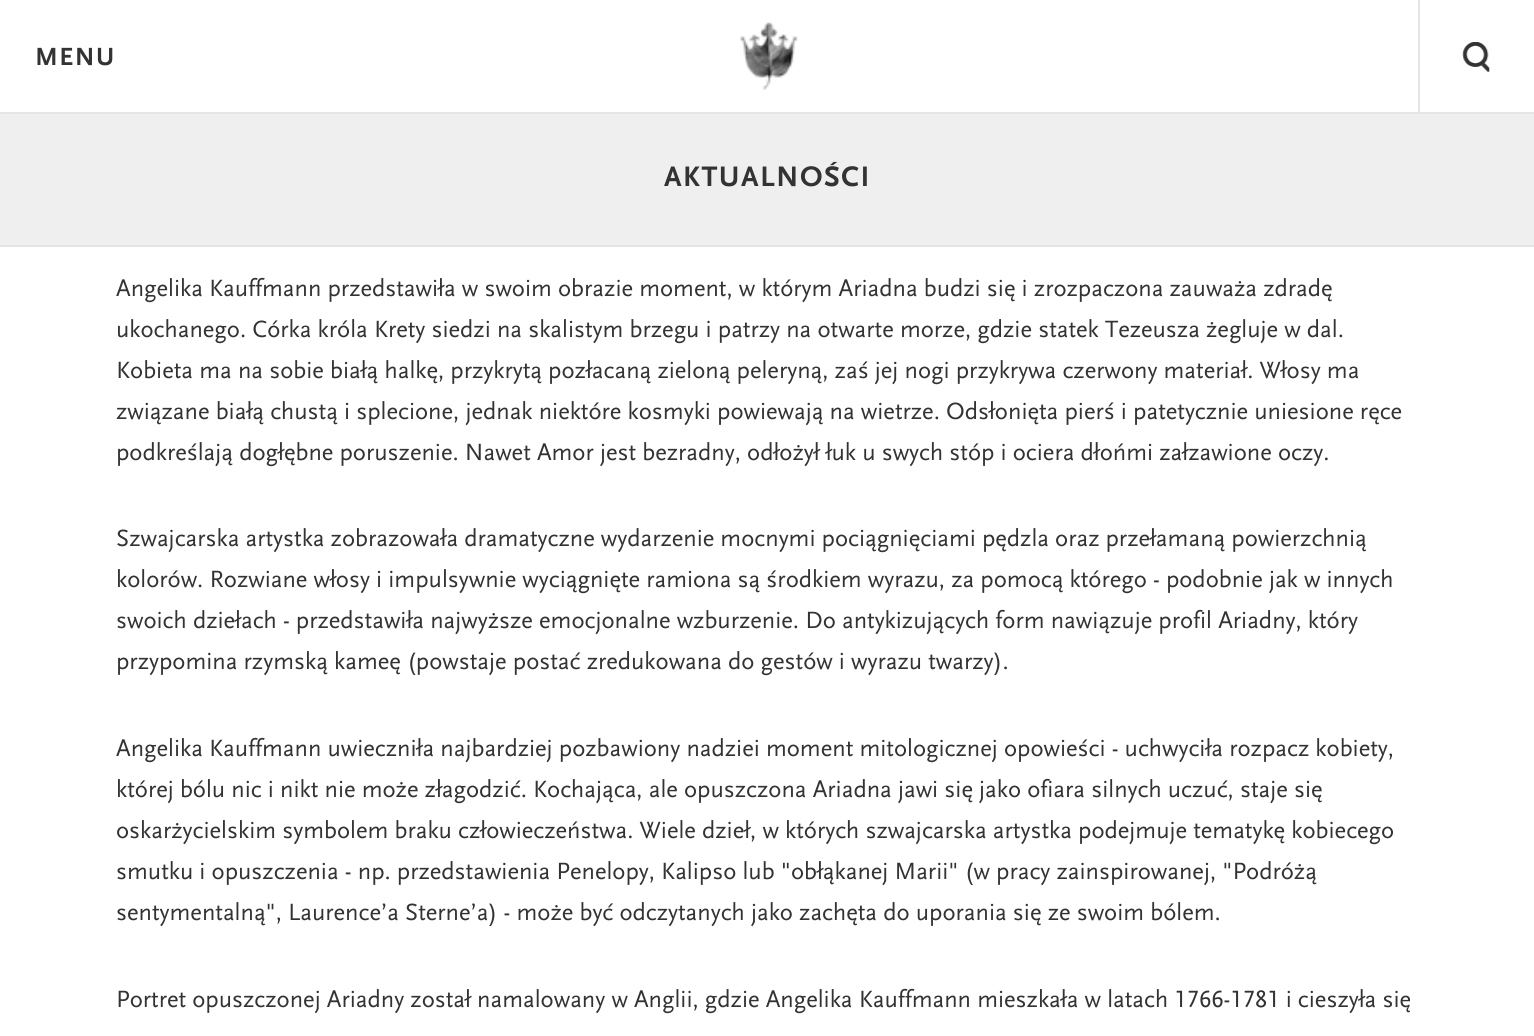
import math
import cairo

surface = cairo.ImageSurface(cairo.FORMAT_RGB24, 1534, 1036)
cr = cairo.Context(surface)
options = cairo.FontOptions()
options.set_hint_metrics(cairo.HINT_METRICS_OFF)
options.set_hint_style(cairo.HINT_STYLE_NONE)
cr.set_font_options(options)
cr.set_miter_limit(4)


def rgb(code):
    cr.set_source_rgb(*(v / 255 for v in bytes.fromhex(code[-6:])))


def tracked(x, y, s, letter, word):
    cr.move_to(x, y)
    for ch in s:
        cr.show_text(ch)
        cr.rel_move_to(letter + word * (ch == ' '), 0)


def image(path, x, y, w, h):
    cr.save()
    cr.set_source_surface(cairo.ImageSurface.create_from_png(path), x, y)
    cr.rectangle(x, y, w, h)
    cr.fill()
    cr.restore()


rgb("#ffffff")
cr.paint()
rgb("#e5e5e5")
cr.rectangle(0, 112, 1534, 2)
cr.fill()
image("img/1.png", 740, 22, 59, 68)
cr.rectangle(1418, 0, 2, 112)
cr.fill()
image("img/2.png", 1462, 42, 28, 30)
rgb("#efefef")
cr.rectangle(0, 114, 1534, 131)
cr.fill()
rgb("#e5e5e5")
cr.rectangle(0, 245, 1534, 2)
cr.fill()
cr.select_font_face("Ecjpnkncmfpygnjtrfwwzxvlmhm", cairo.FONT_SLANT_NORMAL, cairo.FONT_WEIGHT_BOLD)
cr.set_font_size(26)
rgb("#333333")
tracked(35, 65, "MENU", 1.5, 0)
cr.set_font_size(29.5)
tracked(664, 186, "AKTUALNOŚCI", 1.5, 0)
cr.select_font_face("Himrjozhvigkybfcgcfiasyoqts")
cr.set_font_size(24.6)
for x, y, s in [
    (116, 296, "Angelika Kauffmann przedstawiła w swoim obrazie moment, w którym Ariadna budzi się i zrozpaczona zauważa zdradę"),
    (116, 337, "ukochanego. Córka króla Krety siedzi na skalistym brzegu i patrzy na otwarte morze, gdzie statek Tezeusza żegluje w dal."),
    (116, 378, "Kobieta ma na sobie białą halkę, przykrytą pozłacaną zieloną peleryną, zaś jej nogi przykrywa czerwony materiał. Włosy ma"),
    (116, 419, "związane białą chustą i splecione, jednak niektóre kosmyki powiewają na wietrze. Odsłonięta pierś i patetycznie uniesione ręce"),
    (116, 460, "podkreślają dogłębne poruszenie. Nawet Amor jest bezradny, odłożył łuk u swych stóp i ociera dłońmi załzawione oczy."),
]:
    cr.move_to(x, y)
    cr.show_text(s)
tracked(116, 546, "Szwajcarska artystka zobrazowała dramatyczne wydarzenie mocnymi pociągnięciami pędzla oraz przełamaną powierzchnią", 0, -0.1)
for x, y, s in [
    (116, 587, "kolorów. Rozwiane włosy i impulsywnie wyciągnięte ramiona są środkiem wyrazu, za pomocą którego - podobnie jak w innych"),
    (116, 628, "swoich dziełach - przedstawiła najwyższe emocjonalne wzburzenie. Do antykizujących form nawiązuje profil Ariadny, który"),
    (116, 669, "przypomina rzymską kameę (powstaje postać zredukowana do gestów i wyrazu twarzy)."),
    (116, 756, "Angelika Kauffmann uwieczniła najbardziej pozbawiony nadziei moment mitologicznej opowieści - uchwyciła rozpacz kobiety,"),
    (116, 797, "której bólu nic i nikt nie może złagodzić. Kochająca, ale opuszczona Ariadna jawi się jako ofiara silnych uczuć, staje się"),
    (116, 838, "oskarżycielskim symbolem braku człowieczeństwa. Wiele dzieł, w których szwajcarska artystka podejmuje tematykę kobiecego"),
    (116, 879, "smutku i opuszczenia - np. przedstawienia Penelopy, Kalipso lub \"obłąkanej Marii\" (w pracy zainspirowanej, \"Podróżą"),
    (116, 920, "sentymentalną\", Laurence’a Sterne’a) - może być odczytanych jako zachęta do uporania się ze swoim bólem."),
    (116, 1007, "Portret opuszczonej Ariadny został namalowany w Anglii, gdzie Angelika Kauffmann mieszkała w latach 1766-1781 i cieszyła się"),
]:
    cr.move_to(x, y)
    cr.show_text(s)
surface.write_to_png("page.png")
